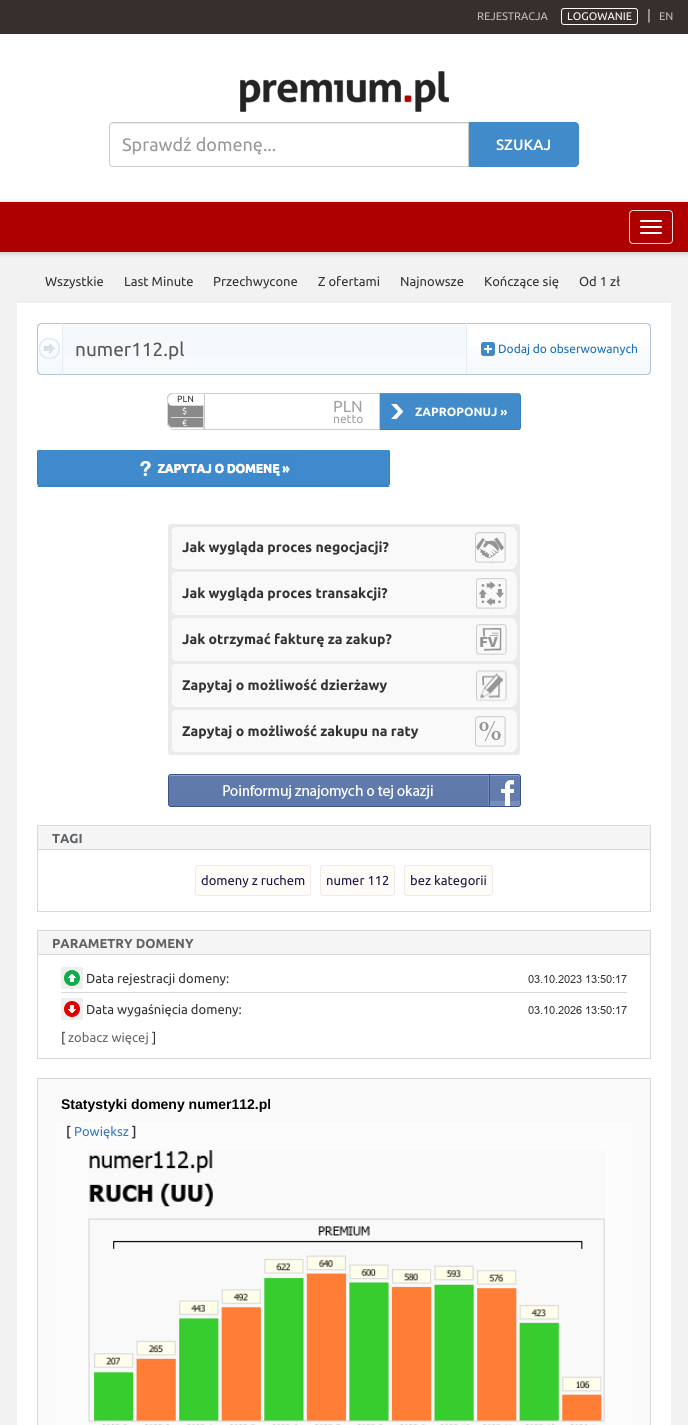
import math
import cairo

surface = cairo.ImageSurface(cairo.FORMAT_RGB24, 688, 1425)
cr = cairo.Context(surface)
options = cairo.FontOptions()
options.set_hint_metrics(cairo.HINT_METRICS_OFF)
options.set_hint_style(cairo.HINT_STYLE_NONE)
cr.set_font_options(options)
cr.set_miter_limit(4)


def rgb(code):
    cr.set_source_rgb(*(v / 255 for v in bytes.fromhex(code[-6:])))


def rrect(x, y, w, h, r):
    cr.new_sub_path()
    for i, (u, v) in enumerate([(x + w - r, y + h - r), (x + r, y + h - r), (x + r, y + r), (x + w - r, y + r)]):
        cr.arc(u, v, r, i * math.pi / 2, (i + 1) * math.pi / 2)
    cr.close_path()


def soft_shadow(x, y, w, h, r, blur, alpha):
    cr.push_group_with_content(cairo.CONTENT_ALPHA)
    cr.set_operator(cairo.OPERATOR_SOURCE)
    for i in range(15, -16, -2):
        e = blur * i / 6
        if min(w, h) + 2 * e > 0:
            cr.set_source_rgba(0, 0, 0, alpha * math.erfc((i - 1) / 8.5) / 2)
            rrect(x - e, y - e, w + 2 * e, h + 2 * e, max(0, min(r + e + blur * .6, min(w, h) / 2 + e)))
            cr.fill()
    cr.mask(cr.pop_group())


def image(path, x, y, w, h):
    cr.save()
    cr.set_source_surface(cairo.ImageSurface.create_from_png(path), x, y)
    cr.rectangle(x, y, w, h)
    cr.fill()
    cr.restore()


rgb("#ffffff")
cr.paint()
rgb("#372f2b")
cr.rectangle(0, 0, 688, 34)
cr.fill()
rrect(561.5, 8.5, 76, 16, 2.5)
rgb("#ffffff")
cr.set_line_width(1)
cr.stroke()
image("img/1.png", 240, 71, 209, 41)
rgb("#ececec")
cr.new_path()
cr.move_to(113, 124)
cr.line_to(468, 124)
cr.line_to(468, 123)
cr.line_to(113, 123)
cr.curve_to(111, 123, 110, 124, 110, 126)
cr.line_to(110, 127)
cr.curve_to(110, 125, 111, 124, 113, 124)
cr.close_path()
cr.fill()
cr.new_path()
cr.move_to(113, 122.5)
cr.line_to(468.5, 122.5)
cr.line_to(468.5, 166.5)
cr.line_to(113, 166.5)
cr.curve_to(111, 166.5, 109.5, 165, 109.5, 163)
cr.line_to(109.5, 126)
cr.curve_to(109.5, 124, 111, 122.5, 113, 122.5)
cr.close_path()
rgb("#cccccc")
cr.stroke()
rgb("#428bca")
cr.new_path()
cr.move_to(469, 122)
cr.line_to(575, 122)
cr.curve_to(577, 122, 579, 124, 579, 126)
cr.line_to(579, 163)
cr.curve_to(579, 165, 577, 167, 575, 167)
cr.line_to(469, 167)
cr.close_path()
cr.fill()
rgb("#f2f2f2")
cr.rectangle(0, 252, 688, 1173)
cr.fill()
rgb("#000000")
soft_shadow(0, 203, 688, 50, 0, 2.5, 0.2)
rgb("#ae0001")
cr.rectangle(0, 202, 688, 50)
cr.fill()
rrect(629.5, 210.5, 43, 33, 3.5)
rgb("#dddddd")
cr.stroke()
rgb("#ffffff")
rrect(640, 220, 22, 2, 1)
cr.fill()
rrect(640, 226, 22, 2, 1)
cr.fill()
rrect(640, 232, 22, 2, 1)
cr.fill()
cr.rectangle(16, 302, 656, 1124)
cr.fill_preserve()
rgb("#eff0ef")
cr.set_line_width(2)
cr.stroke()
image("img/2.png", 37, 346, 614, 29)
image("img/3.png", 39, 338, 21, 21)
rgb("#b2c4d5")
cr.set_fill_rule(cairo.FILL_RULE_EVEN_ODD)
cr.new_path()
cr.move_to(42, 323)
cr.line_to(62, 323)
cr.line_to(62, 375)
cr.line_to(42, 375)
cr.curve_to(39, 375, 37, 373, 37, 370)
cr.line_to(37, 328)
cr.curve_to(37, 325, 39, 323, 42, 323)
cr.close_path()
cr.move_to(42, 324)
cr.line_to(62, 324)
cr.line_to(62, 374)
cr.line_to(42, 374)
cr.curve_to(40, 374, 38, 372, 38, 370)
cr.line_to(38, 328)
cr.curve_to(38, 326, 40, 324, 42, 324)
cr.close_path()
cr.fill()
for x, y, w, h, color in [
    (63, 324, 403, 34, "#f6f9fc"),
    (62, 323, 405, 1, "#b2c4d5"),
    (466, 323, 1, 52, "#e5ecf2"),
    (62, 374, 405, 1, "#b2c4d5"),
    (62, 323, 1, 52, "#e5ecf2"),
]:
    rgb(color)
    cr.rectangle(x, y, w, h)
    cr.fill()
rgb("#b2c4d5")
cr.new_path()
cr.move_to(467, 323)
cr.line_to(646, 323)
cr.curve_to(649, 323, 651, 325, 651, 328)
cr.line_to(651, 370)
cr.curve_to(651, 373, 649, 375, 646, 375)
cr.line_to(467, 375)
cr.close_path()
cr.move_to(467, 324)
cr.line_to(646, 324)
cr.curve_to(648, 324, 650, 326, 650, 328)
cr.line_to(650, 370)
cr.curve_to(650, 372, 648, 374, 646, 374)
cr.line_to(467, 374)
cr.close_path()
cr.fill()
image("img/4.png", 481, 342, 14, 14)
rgb("#8a8a8a")
cr.new_path()
cr.move_to(173, 393)
cr.line_to(204, 393)
cr.line_to(204, 428)
cr.line_to(173, 428)
cr.curve_to(169.5, 428, 167, 425.5, 167, 422)
cr.line_to(167, 399)
cr.curve_to(167, 395.5, 169.5, 393, 173, 393)
cr.close_path()
cr.fill()
rgb("#d8d8d8")
cr.new_path()
cr.move_to(173, 393)
cr.line_to(204, 393)
cr.line_to(204, 428)
cr.line_to(173, 428)
cr.curve_to(169.5, 428, 167, 425.5, 167, 422)
cr.line_to(167, 399)
cr.curve_to(167, 395.5, 169.5, 393, 173, 393)
cr.close_path()
cr.move_to(173, 394)
cr.line_to(204, 394)
cr.line_to(204, 427)
cr.line_to(173, 427)
cr.curve_to(170, 427, 168, 425, 168, 422)
cr.line_to(168, 399)
cr.curve_to(168, 396, 170, 394, 173, 394)
cr.close_path()
cr.fill()
rgb("#ffffff")
cr.new_path()
cr.move_to(173, 394)
cr.line_to(204, 394)
cr.line_to(204, 406)
cr.line_to(173, 406)
cr.curve_to(170, 406, 168, 404, 168, 401)
cr.line_to(168, 399)
cr.curve_to(168, 396, 170, 394, 173, 394)
cr.close_path()
cr.fill()
for x, y, w, h, color in [
    (171, 405, 33, 1, "#d8d8d8"),
    (203, 406, 1, 24, "#d8d8d8"),
    (171, 417, 33, 1, "#d8d8d8"),
    (171, 429, 33, 1, "#d8d8d8"),
]:
    rgb(color)
    cr.rectangle(x, y, w, h)
    cr.fill()
cr.rectangle(204.5, 393.5, 175, 36)
rgb("#cccccc")
cr.set_line_width(1)
cr.stroke()
image("img/5.png", 380, 393, 141, 37)
image("img/6.png", 37, 450, 353, 37)
rgb("#eaeaea")
cr.rectangle(168, 532, 352, 215)
cr.fill()
image("img/7.png", 168, 524, 352, 8)
rgb("#f9f9f9")
cr.rectangle(172, 532, 345, 31)
cr.fill()
image("img/8.png", 475, 532, 31, 31)
image("img/9.png", 171, 563, 346, 15)
cr.rectangle(172, 578, 345, 31)
cr.fill()
image("img/10.png", 476, 578, 31, 31)
image("img/9.png", 171, 609, 346, 15)
cr.rectangle(172, 624, 345, 31)
cr.fill()
image("img/11.png", 476, 624, 31, 31)
image("img/9.png", 171, 655, 346, 15)
cr.rectangle(172, 670, 345, 31)
cr.fill()
image("img/12.png", 476, 670, 31, 31)
image("img/9.png", 171, 701, 346, 15)
cr.rectangle(172, 716, 345, 31)
cr.fill()
image("img/13.png", 475, 716, 31, 31)
image("img/14.png", 168, 747, 352, 8)
image("img/15.png", 168, 774, 353, 33)
cr.rectangle(37.5, 825.5, 613, 86)
rgb("#d8d8d8")
cr.stroke()
rgb("#f5f5f5")
cr.rectangle(38, 826, 612, 23)
cr.fill()
rgb("#d8d8d8")
cr.rectangle(38, 849, 612, 1)
cr.fill()
rgb("#fffbf6")
rrect(195.5, 865.5, 115, 30, 2.5)
cr.fill_preserve()
rgb("#efebe7")
cr.stroke()
rgb("#fffbf6")
rrect(320.5, 865.5, 74, 30, 2.5)
cr.fill_preserve()
rgb("#efebe7")
cr.stroke()
rgb("#fffbf6")
rrect(404.5, 865.5, 88, 30, 2.5)
cr.fill_preserve()
rgb("#efebe7")
cr.stroke()
cr.rectangle(37.5, 930.5, 613, 128)
rgb("#d8d8d8")
cr.stroke()
rgb("#f5f5f5")
cr.rectangle(38, 931, 612, 23)
cr.fill()
rgb("#d8d8d8")
cr.rectangle(38, 954, 612, 1)
cr.fill()
image("img/16.png", 61, 967, 22, 22)
image("img/17.png", 528, 975, 99, 8)
cr.rectangle(61, 992, 566, 1)
cr.fill()
image("img/18.png", 61, 998, 22, 22)
image("img/19.png", 528, 1006, 99, 8)
rgb("#f9f9f9")
cr.rectangle(37.5, 1078.5, 613, 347)
cr.fill_preserve()
rgb("#d8d8d8")
cr.stroke()
rgb("#fcfcfc")
cr.rectangle(56, 1122, 576, 303)
cr.fill()
image("img/20.png", 88, 1150, 517, 275)
cr.select_font_face("Ubuntu")
cr.set_font_size(11)
rgb("#bfbfbf")
cr.move_to(477, 20)
cr.show_text("REJESTRACJA")
rgb("#ffffff")
cr.move_to(567, 20)
cr.show_text("LOGOWANIE")
cr.set_font_size(14)
rgb("#cccccc")
cr.move_to(647, 20)
cr.show_text("|")
cr.set_font_size(11)
rgb("#bfbfbf")
cr.move_to(659, 20)
cr.show_text("EN")
cr.set_font_size(18)
rgb("#999999")
cr.move_to(122, 151)
cr.show_text("Sprawdź domenę...")
cr.select_font_face("Ubuntu Medium")
cr.set_font_size(15)
rgb("#ffffff")
cr.move_to(496, 150)
cr.show_text("SZUKAJ")
cr.select_font_face("Ubuntu")
cr.set_font_size(13)
rgb("#333333")
for x, y, s in [
    (45, 286, "Wszystkie"),
    (124, 286, "Last Minute"),
    (213, 286, "Przechwycone"),
    (318, 286, "Z ofertami"),
    (400, 286, "Najnowsze"),
    (484, 286, "Kończące się"),
    (579, 286, "Od 1 zł"),
]:
    cr.move_to(x, y)
    cr.show_text(s)
cr.set_font_size(19)
rgb("#575757")
cr.move_to(75, 356)
cr.show_text("numer112.pl")
cr.set_font_size(12)
rgb("#166fb8")
cr.move_to(498, 353)
cr.show_text("Dodaj do obserwowanych")
cr.set_font_size(9)
rgb("#333333")
cr.move_to(177, 402)
cr.show_text("PLN")
rgb("#ffffff")
cr.move_to(182, 414)
cr.show_text("$")
cr.move_to(182, 426)
cr.show_text("€")
cr.set_font_size(16)
rgb("#a1a1a1")
cr.move_to(333, 412)
cr.show_text("PLN")
cr.set_font_size(12)
cr.move_to(333, 423)
cr.show_text("netto")
cr.select_font_face("Ubuntu", cairo.FONT_SLANT_NORMAL, cairo.FONT_WEIGHT_BOLD)
rgb("#ffffff")
cr.move_to(415, 416)
cr.show_text("ZAPROPONUJ »")
cr.set_font_size(14)
rgb("#333333")
for x, y, s in [
    (182, 552, "Jak wygląda proces negocjacji?"),
    (182, 598, "Jak wygląda proces transakcji?"),
    (182, 644, "Jak otrzymać fakturę za zakup?"),
    (182, 690, "Zapytaj o możliwość dzierżawy"),
    (182, 736, "Zapytaj o możliwość zakupu na raty"),
]:
    cr.move_to(x, y)
    cr.show_text(s)
cr.set_font_size(13)
rgb("#5f6368")
cr.move_to(52, 843)
cr.show_text("TAGI")
cr.select_font_face("Ubuntu")
rgb("#1c1445")
for x, y, s in [
    (201, 885, "domeny z ruchem"),
    (326, 885, "numer 112"),
    (410, 885, "bez kategorii"),
]:
    cr.move_to(x, y)
    cr.show_text(s)
cr.select_font_face("Ubuntu", cairo.FONT_SLANT_NORMAL, cairo.FONT_WEIGHT_BOLD)
rgb("#5f6368")
cr.move_to(52, 948)
cr.show_text("PARAMETRY DOMENY")
cr.select_font_face("Ubuntu")
rgb("#333333")
for x, y, s in [
    (86, 983, "Data rejestracji domeny:"),
    (86, 1014, "Data wygaśnięcia domeny:"),
    (61, 1042, "["),
]:
    cr.move_to(x, y)
    cr.show_text(s)
rgb("#666666")
cr.move_to(68, 1042)
cr.show_text("zobacz więcej")
rgb("#333333")
cr.move_to(152, 1042)
cr.show_text("]")
cr.select_font_face("Liberation Sans", cairo.FONT_SLANT_NORMAL, cairo.FONT_WEIGHT_BOLD)
cr.set_font_size(14)
rgb("#000000")
cr.move_to(61, 1109)
cr.show_text("Statystyki domeny numer112.pl")
cr.select_font_face("Ubuntu Medium")
cr.set_font_size(13)
rgb("#333333")
cr.move_to(66, 1136)
cr.show_text("[")
cr.select_font_face("Ubuntu")
rgb("#3878c9")
cr.move_to(74, 1136)
cr.show_text("Powiększ")
cr.select_font_face("Ubuntu Medium")
rgb("#333333")
cr.move_to(132, 1136)
cr.show_text("]")
surface.write_to_png("page.png")
